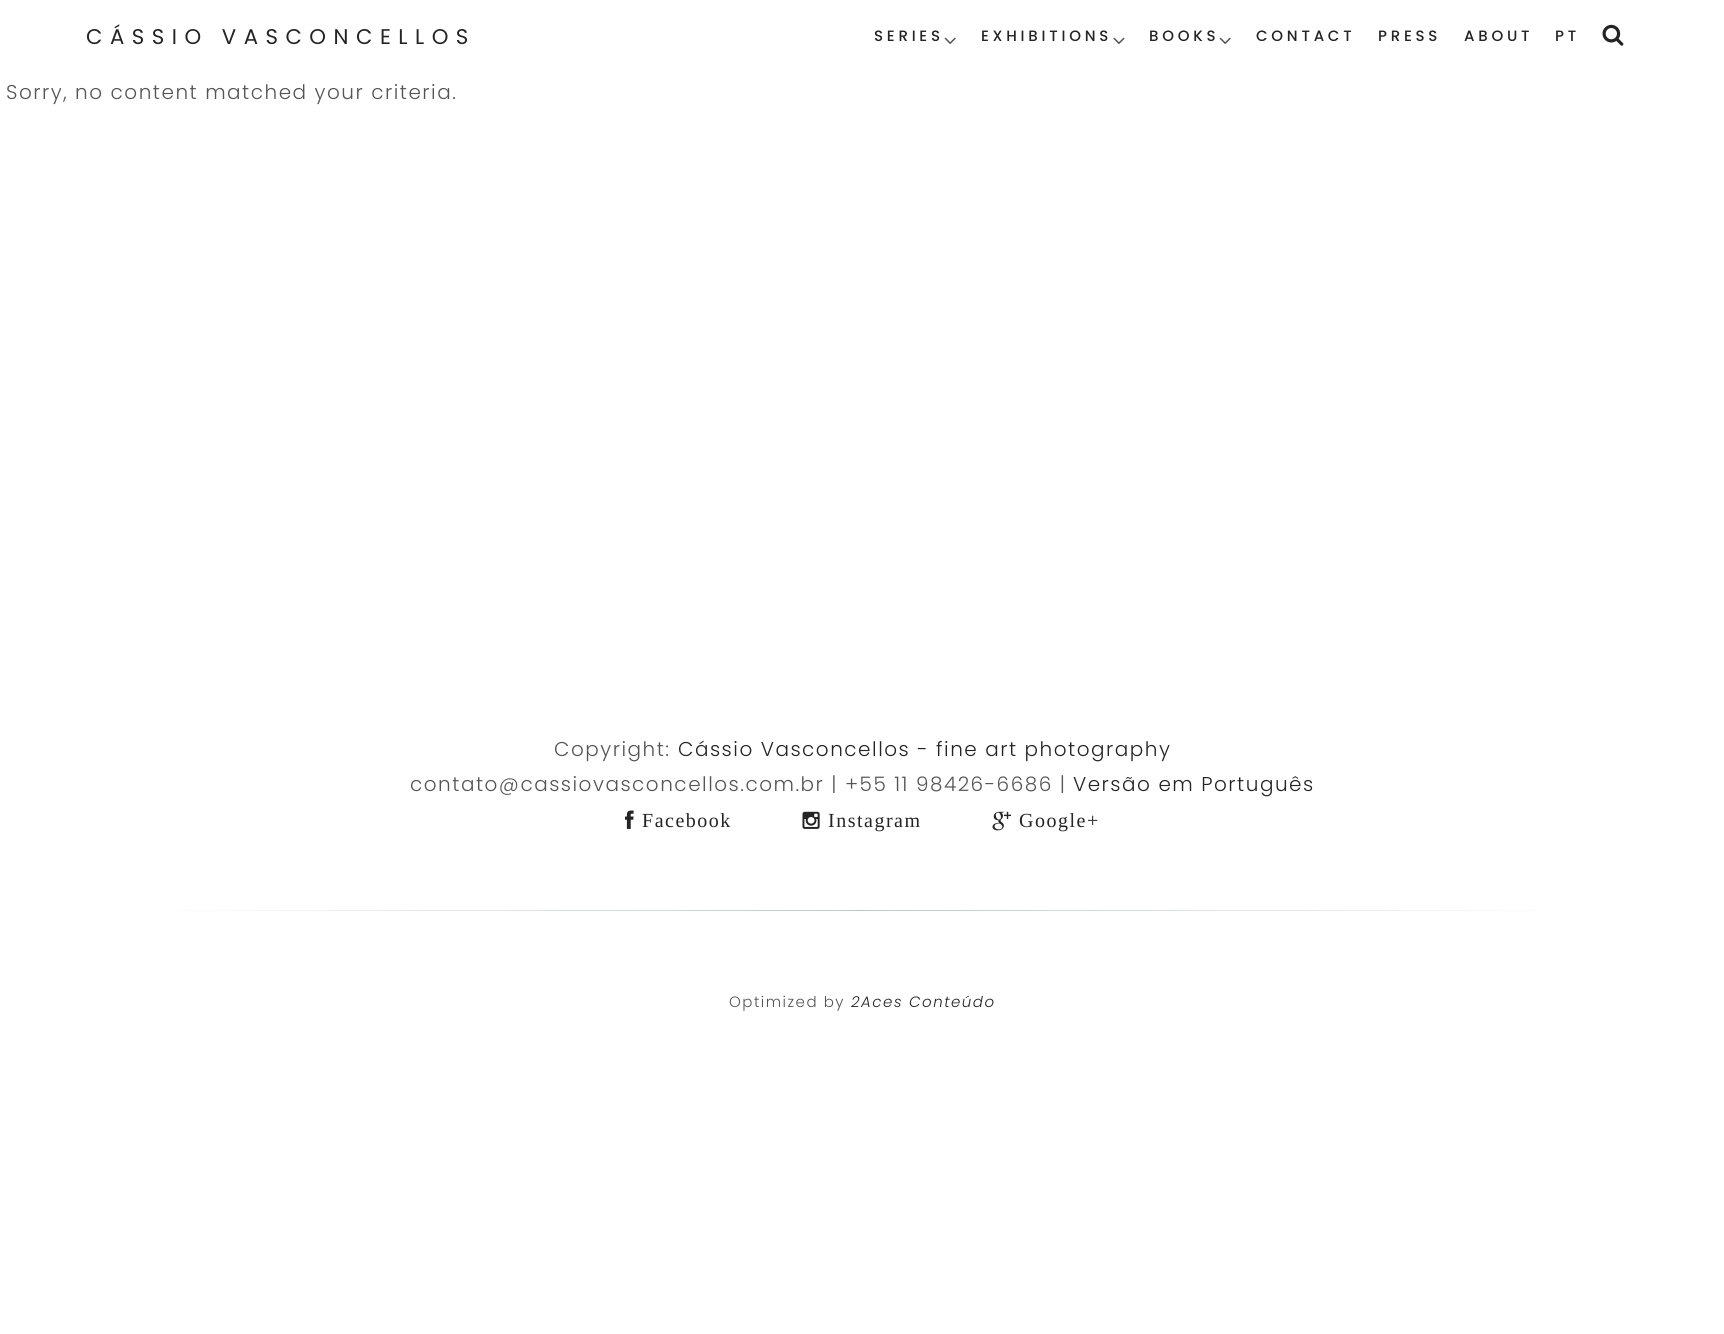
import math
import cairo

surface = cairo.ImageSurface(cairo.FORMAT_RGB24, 1724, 1334)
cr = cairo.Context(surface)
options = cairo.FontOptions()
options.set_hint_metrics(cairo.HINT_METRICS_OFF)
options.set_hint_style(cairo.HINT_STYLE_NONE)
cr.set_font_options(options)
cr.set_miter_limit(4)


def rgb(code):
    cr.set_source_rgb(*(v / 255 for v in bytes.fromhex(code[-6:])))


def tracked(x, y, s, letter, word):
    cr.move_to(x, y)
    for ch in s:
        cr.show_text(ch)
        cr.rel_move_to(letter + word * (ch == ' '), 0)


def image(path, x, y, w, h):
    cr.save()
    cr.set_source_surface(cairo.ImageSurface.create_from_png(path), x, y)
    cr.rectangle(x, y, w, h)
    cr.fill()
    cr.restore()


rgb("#ffffff")
cr.paint()
image("img/1.png", 944, 37, 12, 8)
image("img/2.png", 1113, 37, 12, 8)
image("img/1.png", 1219, 37, 12, 8)
image("img/3.png", 1602, 24, 22, 22)
image("img/4.png", 625, 810, 9, 19)
image("img/5.png", 802, 811, 18, 18)
image("img/6.png", 992, 811, 20, 20)
gradient = cairo.LinearGradient(150, 911, 1575, 911)
gradient.add_color_stop_rgba(0, 1, 1, 1, 1)
gradient.add_color_stop_rgba(0.5, 0.753, 0.784, 0.788, 1)
gradient.add_color_stop_rgba(1, 1, 1, 1, 1)
cr.set_source(gradient)
cr.rectangle(178, 910, 1369, 1)
cr.fill()
cr.select_font_face("Poppins")
cr.set_font_size(21.25)
rgb("#242424")
tracked(86, 44, "CÁSSIO VASCONCELLOS", 7.5, 0)
cr.select_font_face("Poppins Medium")
cr.set_font_size(15)
for x, y, s in [
    (874, 41, "SERIES"),
    (981, 41, "EXHIBITIONS"),
    (1149, 41, "BOOKS"),
    (1256, 41, "CONTACT"),
    (1378, 41, "PRESS"),
    (1464, 41, "ABOUT"),
    (1555, 41, "PT"),
]:
    tracked(x, y, s, 3.75, 0)
cr.select_font_face("Poppins Light")
cr.set_font_size(20)
rgb("#555555")
tracked(6, 99, "Sorry, no content matched your criteria.", 1.5, 0)
tracked(554, 756, "Copyright:", 1.5, 0)
rgb("#242424")
tracked(678, 756, "Cássio Vasconcellos - fine art photography", 1.5, 0)
rgb("#555555")
tracked(410, 791, "contato@cassiovasconcellos.com.br | +55 11 98426-6686 |", 1.5, 0)
rgb("#242424")
tracked(1073, 791, "Versão em Português", 1.5, 0)
cr.select_font_face("Liberation Serif")
for x, y, s in [
    (642, 827, "Facebook"),
    (828, 827, "Instagram"),
    (1019, 827, "Google+"),
]:
    tracked(x, y, s, 1.5, 0)
cr.select_font_face("Poppins Light")
cr.set_font_size(15)
rgb("#555555")
tracked(729, 1007, "Optimized by", 1.5, 0)
cr.select_font_face("Poppins Light", cairo.FONT_SLANT_ITALIC)
rgb("#242424")
tracked(851, 1007, "2Aces Conteúdo", 1.5, 0)
surface.write_to_png("page.png")
